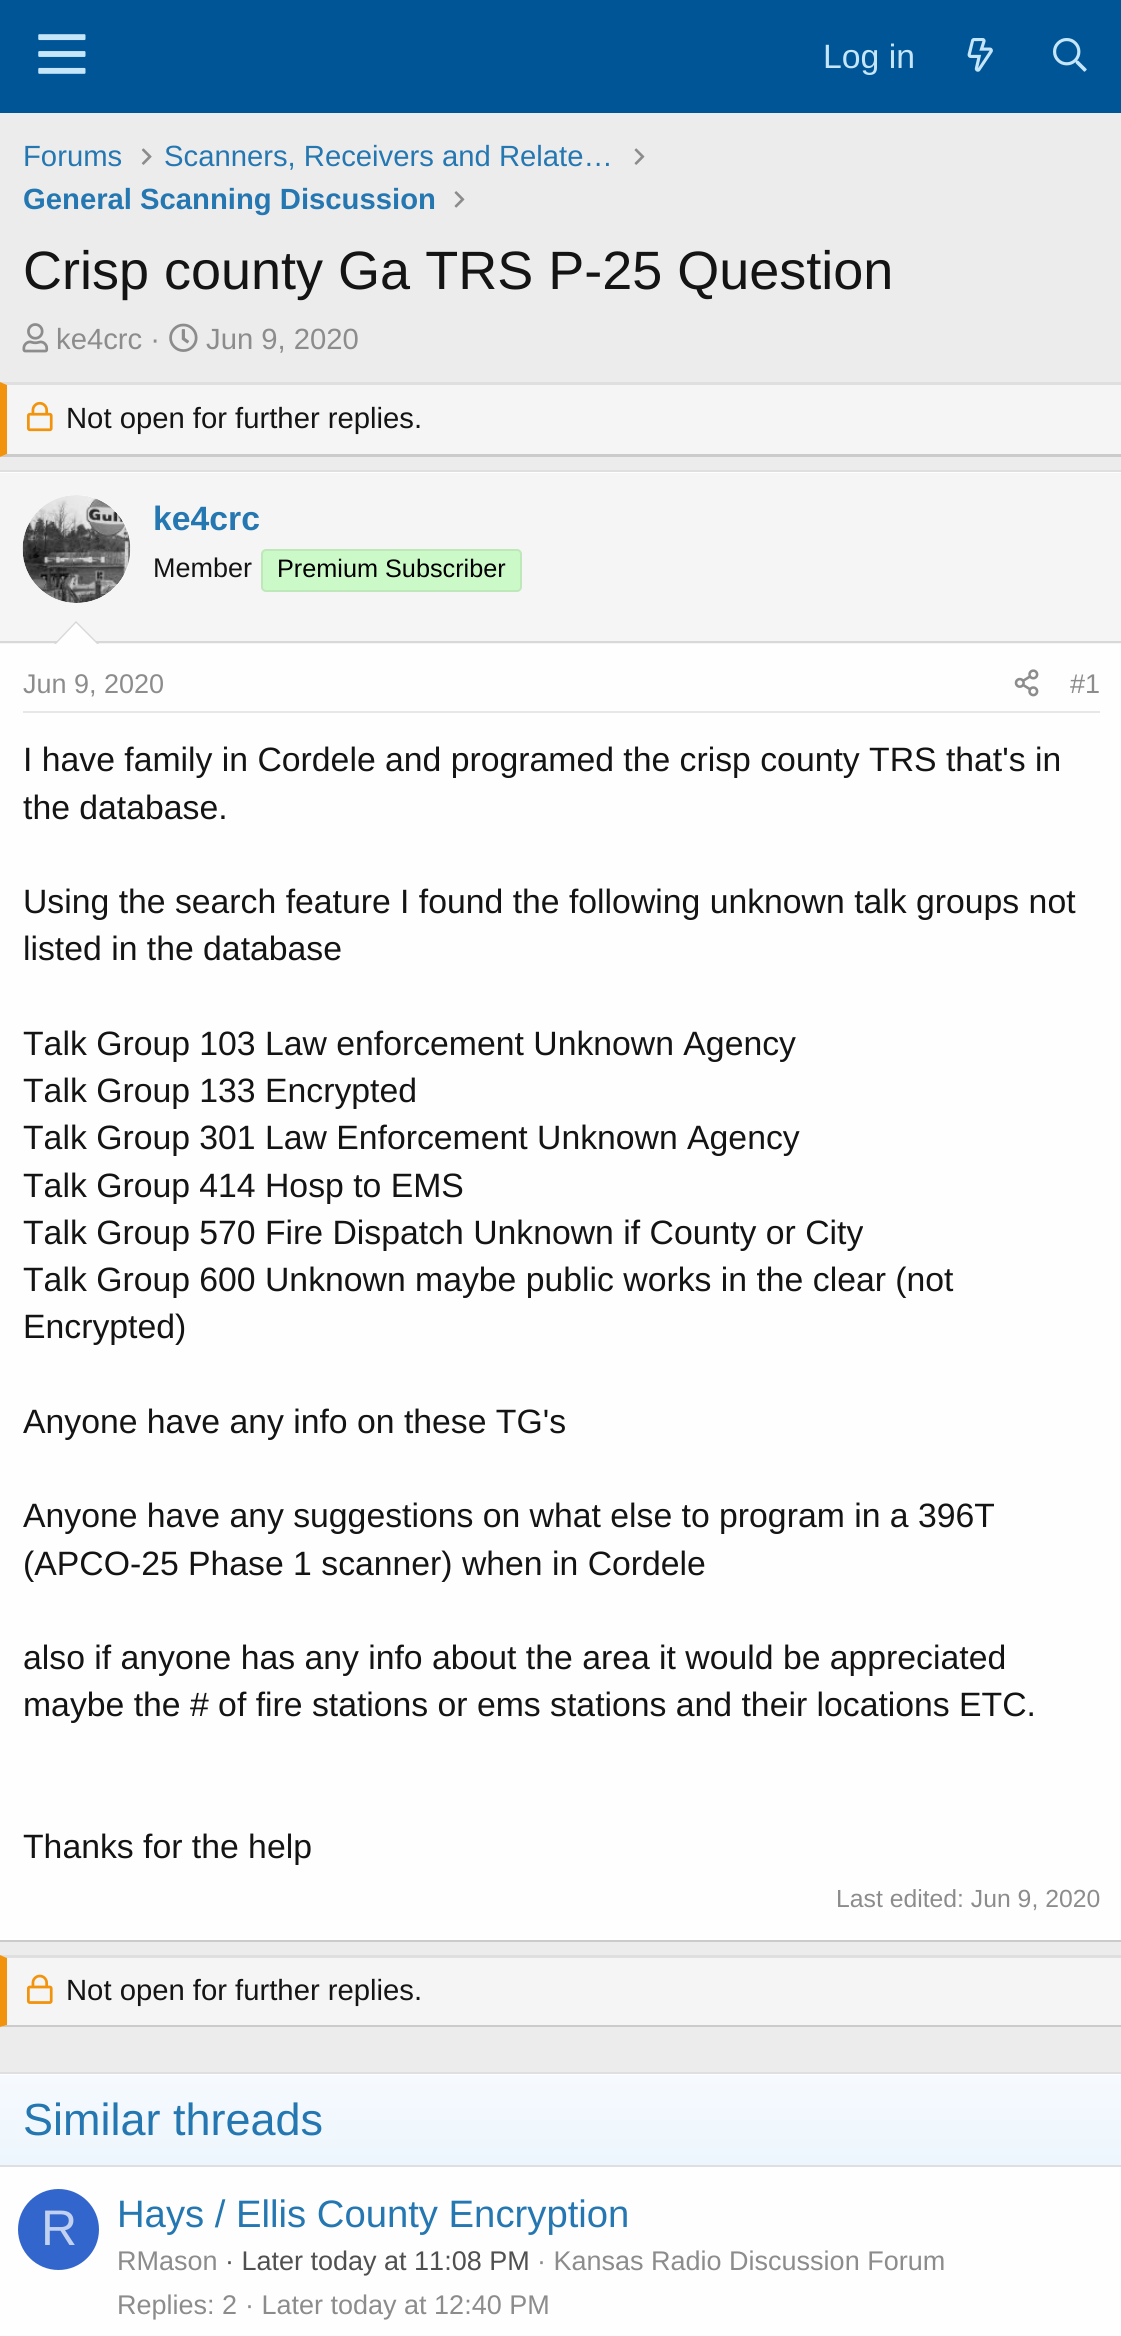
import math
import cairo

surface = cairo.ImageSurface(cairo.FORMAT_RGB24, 1121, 2336)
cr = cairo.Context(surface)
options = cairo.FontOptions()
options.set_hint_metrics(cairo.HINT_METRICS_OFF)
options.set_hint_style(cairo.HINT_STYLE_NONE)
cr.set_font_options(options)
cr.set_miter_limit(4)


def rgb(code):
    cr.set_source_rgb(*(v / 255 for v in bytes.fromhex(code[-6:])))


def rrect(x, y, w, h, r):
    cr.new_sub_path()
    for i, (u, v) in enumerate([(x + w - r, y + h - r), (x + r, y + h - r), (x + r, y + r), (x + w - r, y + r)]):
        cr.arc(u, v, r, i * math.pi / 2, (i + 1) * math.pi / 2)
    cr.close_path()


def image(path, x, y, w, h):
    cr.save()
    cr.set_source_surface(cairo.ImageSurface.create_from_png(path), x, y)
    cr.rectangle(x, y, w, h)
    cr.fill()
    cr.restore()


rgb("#ececec")
cr.paint()
rgb("#005597")
cr.rectangle(0, 0, 1121, 113)
cr.fill()
image("img/1.png", 38, 34, 48, 40)
image("img/2.png", 967, 38, 26, 34)
image("img/3.png", 1053, 38, 34, 34)
image("img/4.png", 141, 148, 11, 17)
image("img/5.png", 634, 148, 11, 17)
image("img/6.png", 454, 191, 11, 17)
image("img/7.png", 22, 323, 27, 30)
image("img/8.png", 169, 323, 29, 29)
rgb("#f5f5f5")
cr.rectangle(0, 383, 1121, 74)
cr.fill()
rgb("#dfdfdf")
cr.new_path()
cr.move_to(0, 382)
cr.line_to(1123, 382)
cr.line_to(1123, 385)
cr.line_to(7, 385)
cr.close_path()
cr.fill()
rgb("#cbcbcb")
cr.new_path()
cr.move_to(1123, 457)
cr.line_to(0, 457)
cr.line_to(7, 454)
cr.line_to(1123, 454)
cr.close_path()
cr.fill()
rgb("#f2930d")
cr.new_path()
cr.move_to(0, 457)
cr.line_to(0, 382)
cr.line_to(7, 385)
cr.line_to(7, 454)
cr.close_path()
cr.fill()
image("img/9.png", 27, 401, 26, 31)
for x, y, w, h, color in [
    (0, 472, 1121, 1468, "#fefefe"),
    (0, 470, 1121, 2, "#dfdfdf"),
    (0, 1940, 1121, 2, "#cbcbcb"),
    (0, 473, 1121, 171, "#f5f5f5"),
    (0, 641, 1121, 2, "#d8d8d8"),
]:
    rgb(color)
    cr.rectangle(x, y, w, h)
    cr.fill()
rgb("#fefefe")
cr.arc(77, 549, 54, 0, 2 * math.pi)
cr.fill()
image("img/10.png", 22, 495, 109, 108)
rgb("#ccf9c8")
rrect(262, 550, 259, 41, 4)
cr.fill_preserve()
rgb("#bee8ba")
cr.stroke()
rgb("#d8d8d8")
cr.new_path()
cr.move_to(99, 644)
cr.line_to(54, 644)
cr.line_to(76, 621)
cr.close_path()
cr.fill()
rgb("#fefefe")
cr.new_path()
cr.move_to(97, 644)
cr.line_to(56, 644)
cr.line_to(76, 623)
cr.close_path()
cr.fill()
rgb("#e7e7e7")
cr.rectangle(23, 711, 1077, 2)
cr.fill()
image("img/11.png", 1014, 669, 25, 28)
rgb("#f5f5f5")
cr.rectangle(0, 1955, 1121, 72)
cr.fill()
rgb("#dfdfdf")
cr.new_path()
cr.move_to(0, 1955)
cr.line_to(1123, 1955)
cr.line_to(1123, 1958)
cr.line_to(7, 1958)
cr.close_path()
cr.fill()
rgb("#cbcbcb")
cr.new_path()
cr.move_to(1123, 2027)
cr.line_to(0, 2027)
cr.line_to(7, 2025)
cr.line_to(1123, 2025)
cr.close_path()
cr.fill()
rgb("#f2930d")
cr.new_path()
cr.move_to(0, 2027)
cr.line_to(0, 1955)
cr.line_to(7, 1958)
cr.line_to(7, 2025)
cr.close_path()
cr.fill()
image("img/12.png", 27, 1974, 26, 30)
rgb("#fefefe")
cr.rectangle(0, 2074, 1121, 262)
cr.fill()
rgb("#dfdfdf")
cr.rectangle(0, 2072, 1121, 2)
cr.fill()
gradient = cairo.LinearGradient(561, 2165, 561, 2075)
gradient.add_color_stop_rgba(0, 0.929, 0.965, 0.992, 1)
gradient.add_color_stop_rgba(1, 0.965, 0.98, 0.996, 1)
cr.set_source(gradient)
cr.rectangle(0, 2075, 1121, 90)
cr.fill()
rgb("#dfdfdf")
cr.rectangle(0, 2165, 1121, 2)
cr.fill()
rgb("#3366cc")
cr.arc(58.5, 2229.5, 40.5, 0, 2 * math.pi)
cr.fill()
cr.select_font_face("Liberation Sans")
cr.set_font_size(33.75)
rgb("#c5e5f8")
cr.move_to(823, 68)
cr.show_text("Log in")
cr.set_font_size(29.25)
rgb("#2577b1")
cr.move_to(23, 166)
cr.show_text("Forums")
cr.move_to(164, 166)
cr.show_text("Scanners, Receivers and Relate…")
cr.select_font_face("Liberation Sans", cairo.FONT_SLANT_NORMAL, cairo.FONT_WEIGHT_BOLD)
cr.move_to(23, 209)
cr.show_text("General Scanning Discussion")
cr.select_font_face("Liberation Sans")
cr.set_font_size(54)
rgb("#141414")
cr.move_to(23, 289)
cr.show_text("Crisp county Ga TRS P-25 Question")
cr.set_font_size(29.25)
rgb("#8c8c8c")
cr.move_to(56, 349)
cr.show_text("ke4crc ·")
cr.move_to(206, 349)
cr.show_text("Jun 9, 2020")
rgb("#141414")
cr.move_to(66, 428)
cr.show_text("Not open for further replies.")
cr.select_font_face("Liberation Sans", cairo.FONT_SLANT_NORMAL, cairo.FONT_WEIGHT_BOLD)
cr.set_font_size(33.75)
rgb("#2577b1")
cr.move_to(153, 530)
cr.show_text("ke4crc")
cr.select_font_face("Liberation Sans")
cr.set_font_size(27)
rgb("#141414")
cr.move_to(153, 577)
cr.show_text("Member")
cr.set_font_size(25.25)
rgb("#000000")
cr.move_to(277, 577)
cr.show_text("Premium Subscriber")
cr.set_font_size(27)
rgb("#8c8c8c")
cr.move_to(23, 693)
cr.show_text("Jun 9, 2020")
cr.move_to(1070, 693)
cr.show_text("#1")
cr.set_font_size(33.75)
rgb("#141414")
for x, y, s in [
    (23, 771, "I have family in Cordele and programed the crisp county TRS that's in"),
    (23, 819, "the database."),
    (23, 913, "Using the search feature I found the following unknown talk groups not"),
    (23, 960, "listed in the database"),
    (23, 1055, "Talk Group 103 Law enforcement Unknown Agency"),
    (23, 1102, "Talk Group 133 Encrypted"),
    (23, 1149, "Talk Group 301 Law Enforcement Unknown Agency"),
    (23, 1197, "Talk Group 414 Hosp to EMS"),
    (23, 1244, "Talk Group 570 Fire Dispatch Unknown if County or City"),
    (23, 1291, "Talk Group 600 Unknown maybe public works in the clear (not"),
    (23, 1338, "Encrypted)"),
    (23, 1433, "Anyone have any info on these TG's"),
    (23, 1527, "Anyone have any suggestions on what else to program in a 396T"),
    (23, 1575, "(APCO-25 Phase 1 scanner) when in Cordele"),
    (23, 1669, "also if anyone has any info about the area it would be appreciated"),
    (23, 1716, "maybe the # of fire stations or ems stations and their locations ETC."),
    (23, 1858, "Thanks for the help"),
]:
    cr.move_to(x, y)
    cr.show_text(s)
cr.set_font_size(24.75)
rgb("#8c8c8c")
cr.move_to(836, 1907)
cr.show_text("Last edited: Jun 9, 2020")
cr.set_font_size(29.25)
rgb("#141414")
cr.move_to(66, 2000)
cr.show_text("Not open for further replies.")
cr.set_font_size(45)
rgb("#2577b1")
cr.move_to(23, 2135)
cr.show_text("Similar threads")
cr.set_font_size(50)
rgb("#c2d1f0")
cr.move_to(41, 2245)
cr.show_text("R")
cr.set_font_size(38.25)
rgb("#2577b1")
cr.move_to(117, 2227)
cr.show_text("Hays / Ellis County Encryption")
cr.set_font_size(27)
rgb("#8c8c8c")
cr.move_to(117, 2270)
cr.show_text("RMason")
rgb("#505050")
cr.move_to(225, 2270)
cr.show_text("· Later today at 11:08 PM")
rgb("#8c8c8c")
for x, y, s in [
    (537, 2270, "· Kansas Radio Discussion Forum"),
    (117, 2314, "Replies: 2"),
    (245, 2314, "· Later today at 12:40 PM"),
]:
    cr.move_to(x, y)
    cr.show_text(s)
surface.write_to_png("page.png")
